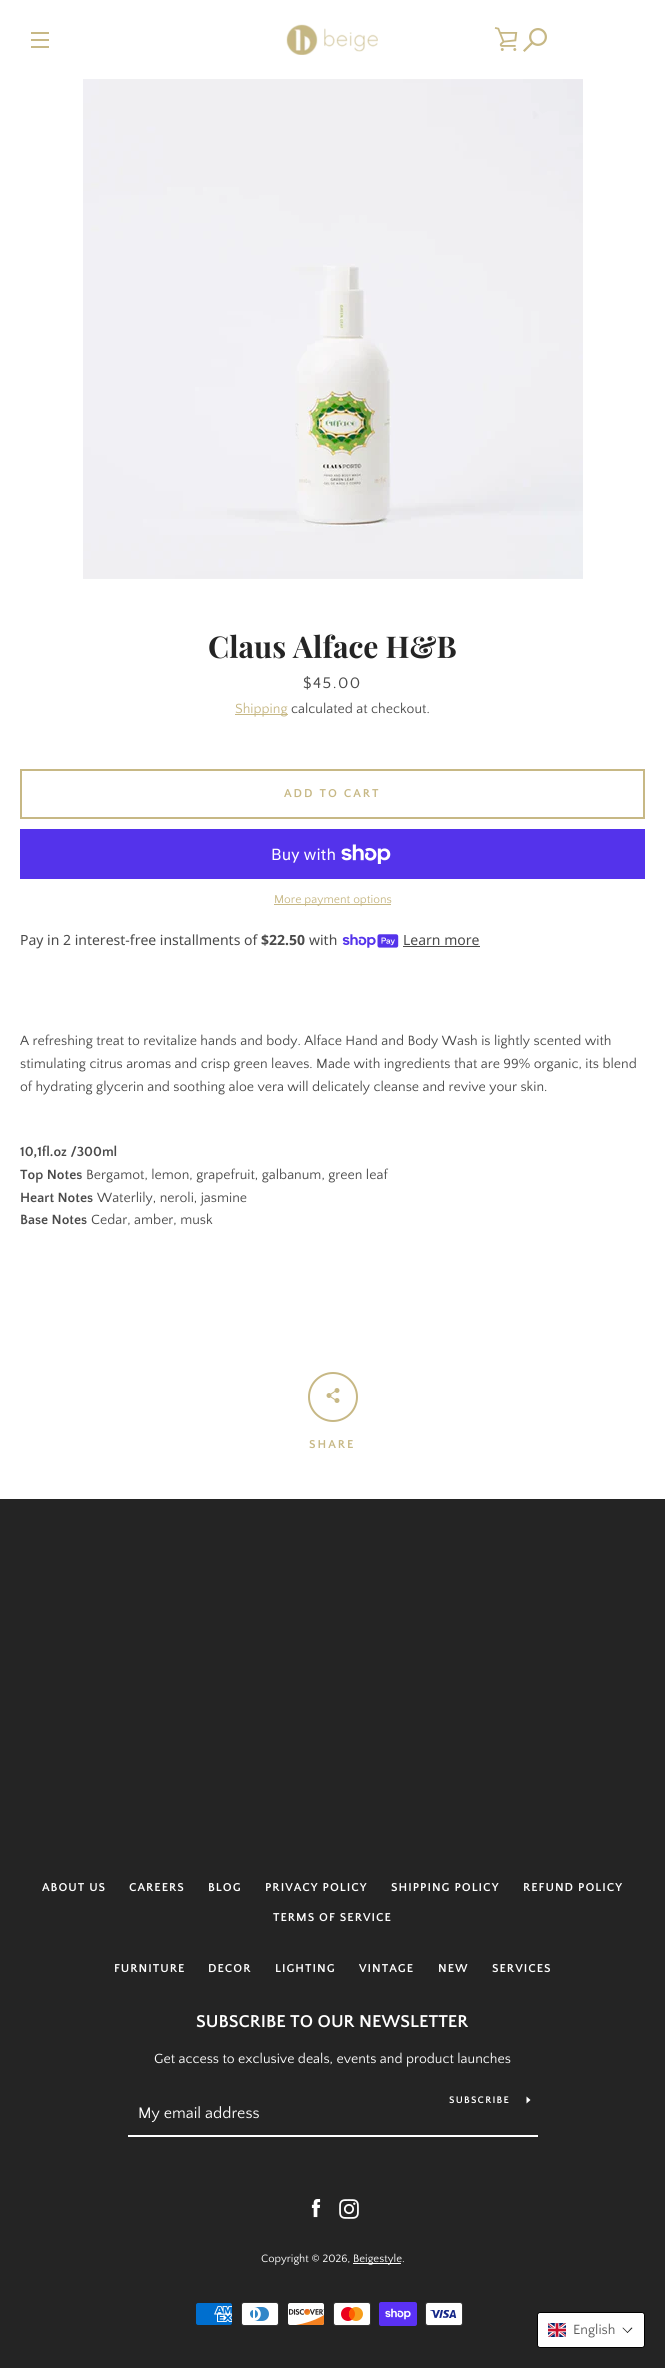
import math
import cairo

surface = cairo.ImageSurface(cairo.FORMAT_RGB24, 665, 2368)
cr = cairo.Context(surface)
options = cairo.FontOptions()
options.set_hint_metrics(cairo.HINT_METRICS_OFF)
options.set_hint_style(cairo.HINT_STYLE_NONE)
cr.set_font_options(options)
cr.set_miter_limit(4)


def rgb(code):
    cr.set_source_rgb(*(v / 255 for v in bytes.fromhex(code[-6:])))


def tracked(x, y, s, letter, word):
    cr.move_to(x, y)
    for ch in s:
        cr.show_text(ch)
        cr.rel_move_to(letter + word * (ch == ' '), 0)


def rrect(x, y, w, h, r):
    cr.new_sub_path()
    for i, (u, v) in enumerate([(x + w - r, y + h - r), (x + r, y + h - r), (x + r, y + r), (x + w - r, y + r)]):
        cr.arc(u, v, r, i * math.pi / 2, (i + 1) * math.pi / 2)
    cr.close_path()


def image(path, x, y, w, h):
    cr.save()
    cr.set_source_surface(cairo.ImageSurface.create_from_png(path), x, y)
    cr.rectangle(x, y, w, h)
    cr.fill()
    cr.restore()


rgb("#242424")
cr.paint()
for x, y, w, h, color in [
    (0, 0, 665, 1499, "#ffffff"),
    (31, 32, 18, 2, "#c7b885"),
    (31, 39, 18, 2, "#c7b885"),
    (31, 46, 18, 2, "#c7b885"),
]:
    rgb(color)
    cr.rectangle(x, y, w, h)
    cr.fill()
image("img/1.png", 286, 24, 92, 31)
image("img/2.png", 494, 27, 24, 24)
image("img/3.png", 523, 28, 24, 24)
image("img/4.png", 83, 79, 500, 500)
cr.rectangle(235, 714, 53, 1)
cr.fill()
cr.rectangle(21, 770, 623, 48)
cr.stroke()
rgb("#5433eb")
cr.rectangle(20, 829, 625, 50)
cr.fill()
image("img/5.png", 341, 844, 50, 20)
rgb("#c7b885")
cr.rectangle(274, 904, 117, 1)
cr.fill()
image("img/6.png", 342, 934, 57, 14)
rgb("#4a4a4a")
cr.rectangle(403, 946, 77, 1)
cr.fill()
cr.arc(333, 1397, 24, 0, 2 * math.pi)
rgb("#c7b885")
cr.stroke()
image("img/7.png", 326, 1388, 14, 15)
rgb("#ffffff")
cr.rectangle(128, 2135, 410, 2)
cr.fill()
cr.new_path()
cr.move_to(530.5, 2100)
cr.line_to(526.5, 2103.5)
cr.line_to(526.5, 2096.5)
cr.close_path()
cr.fill()
image("img/8.png", 311, 2199, 10, 19)
image("img/9.png", 339, 2199, 20, 20)
cr.rectangle(353, 2263, 48, 1)
cr.fill()
image("img/10.png", 196, 2303, 36, 22)
image("img/11.png", 241, 2302, 38, 24)
image("img/12.png", 288, 2303, 36, 22)
image("img/13.png", 333, 2302, 38, 24)
image("img/14.png", 379, 2302, 38, 24)
image("img/15.png", 425, 2302, 38, 24)
rrect(537.5, 2312.5, 107, 35, 2.5)
cr.fill_preserve()
rgb("#000000")
cr.set_line_width(1)
cr.stroke()
image("img/16.png", 548, 2323, 18, 14)
rgb("#1a1a1a")
cr.new_path()
cr.move_to(631.5, 2327.5)
cr.line_to(632.5, 2328)
cr.line_to(627.5, 2333)
cr.line_to(627, 2332.5)
cr.close_path()
cr.fill()
cr.new_path()
cr.move_to(623, 2327.5)
cr.line_to(628, 2332.5)
cr.line_to(627.5, 2333)
cr.line_to(622.5, 2328)
cr.close_path()
cr.fill()
cr.select_font_face("Playfair Display", cairo.FONT_SLANT_NORMAL, cairo.FONT_WEIGHT_BOLD)
cr.set_font_size(30)
rgb("#242424")
cr.move_to(208, 658)
cr.show_text("Claus Alface H&B")
cr.select_font_face("Quattrocento Sans")
cr.set_font_size(16)
rgb("#4a4a4a")
tracked(303, 688, "$45.00", 1.5, 0)
cr.set_font_size(14)
rgb("#c7b885")
cr.move_to(235, 713)
cr.show_text("Shipping")
rgb("#4a4a4a")
cr.move_to(291, 713)
cr.show_text("calculated at checkout.")
cr.select_font_face("Quattrocento Sans", cairo.FONT_SLANT_NORMAL, cairo.FONT_WEIGHT_BOLD)
cr.set_font_size(12)
rgb("#c7b885")
tracked(284, 797, "ADD TO CART", 2, 0)
cr.select_font_face("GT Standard")
cr.set_font_size(16)
rgb("#ffffff")
cr.move_to(271, 860)
cr.show_text("Buy with")
cr.select_font_face("Quattrocento Sans")
cr.set_font_size(12)
rgb("#c7b885")
cr.move_to(274, 903)
cr.show_text("More payment options")
cr.select_font_face("Noto Sans")
cr.set_font_size(14)
rgb("#4a4a4a")
cr.move_to(20, 945)
cr.show_text("Pay in 2 interest-free installments of")
cr.select_font_face("Noto Sans", cairo.FONT_SLANT_NORMAL, cairo.FONT_WEIGHT_BOLD)
cr.move_to(261, 945)
cr.show_text("$22.50")
cr.select_font_face("Noto Sans")
cr.move_to(309, 945)
cr.show_text("with")
cr.move_to(403, 945)
cr.show_text("Learn more")
cr.select_font_face("Quattrocento Sans")
for x, y, s in [
    (20, 1045, "A refreshing treat to revitalize hands and body. Alface Hand and Body Wash is lightly scented with"),
    (20, 1068, "stimulating citrus aromas and crisp green leaves. Made with ingredients that are 99% organic, its blend"),
    (20, 1091, "of hydrating glycerin and soothing aloe vera will delicately cleanse and revive your skin."),
]:
    cr.move_to(x, y)
    cr.show_text(s)
cr.select_font_face("Quattrocento Sans", cairo.FONT_SLANT_NORMAL, cairo.FONT_WEIGHT_BOLD)
cr.move_to(20, 1156)
cr.show_text("10,1fl.oz /300ml")
cr.move_to(20, 1179)
cr.show_text("Top Notes")
cr.select_font_face("Quattrocento Sans")
cr.move_to(86, 1179)
cr.show_text("Bergamot, lemon, grapefruit, galbanum, green leaf")
cr.select_font_face("Quattrocento Sans", cairo.FONT_SLANT_NORMAL, cairo.FONT_WEIGHT_BOLD)
cr.move_to(20, 1202)
cr.show_text("Heart Notes")
cr.select_font_face("Quattrocento Sans")
cr.move_to(97, 1202)
cr.show_text("Waterlily, neroli, jasmine")
cr.select_font_face("Quattrocento Sans", cairo.FONT_SLANT_NORMAL, cairo.FONT_WEIGHT_BOLD)
cr.move_to(20, 1224)
cr.show_text("Base Notes")
cr.select_font_face("Quattrocento Sans")
cr.move_to(91, 1224)
cr.show_text("Cedar, amber, musk")
cr.select_font_face("Quattrocento Sans", cairo.FONT_SLANT_NORMAL, cairo.FONT_WEIGHT_BOLD)
cr.set_font_size(12)
rgb("#c7b885")
tracked(309, 1448, "SHARE", 2, 0)
rgb("#ffffff")
for x, y, s in [
    (42, 1891, "ABOUT US"),
    (129, 1891, "CAREERS"),
    (208, 1891, "BLOG"),
    (265, 1891, "PRIVACY POLICY"),
    (391, 1891, "SHIPPING POLICY"),
    (523, 1891, "REFUND POLICY"),
    (273, 1921, "TERMS OF SERVICE"),
    (114, 1972, "FURNITURE"),
    (208, 1972, "DECOR"),
    (275, 1972, "LIGHTING"),
    (359, 1972, "VINTAGE"),
    (438, 1972, "NEW"),
    (492, 1972, "SERVICES"),
]:
    tracked(x, y, s, 1, 0)
cr.set_font_size(18)
cr.move_to(196, 2027)
cr.show_text("SUBSCRIBE TO OUR NEWSLETTER")
cr.select_font_face("Quattrocento Sans")
cr.set_font_size(14)
cr.move_to(154, 2063)
cr.show_text("Get access to exclusive deals, events and product launches")
cr.select_font_face("Quattrocento Sans", cairo.FONT_SLANT_NORMAL, cairo.FONT_WEIGHT_BOLD)
cr.set_font_size(10)
tracked(449, 2103, "SUBSCRIBE", 1.25, 0)
cr.select_font_face("Quattrocento Sans")
cr.set_font_size(16)
cr.move_to(138, 2118)
cr.show_text("My email address")
cr.set_font_size(11.25)
cr.move_to(261, 2262)
cr.show_text("Copyright © 2026,")
cr.move_to(353, 2262)
cr.show_text("Beigestyle.")
cr.set_font_size(14)
rgb("#5c5c5c")
cr.move_to(573, 2334)
cr.show_text("English")
surface.write_to_png("page.png")
